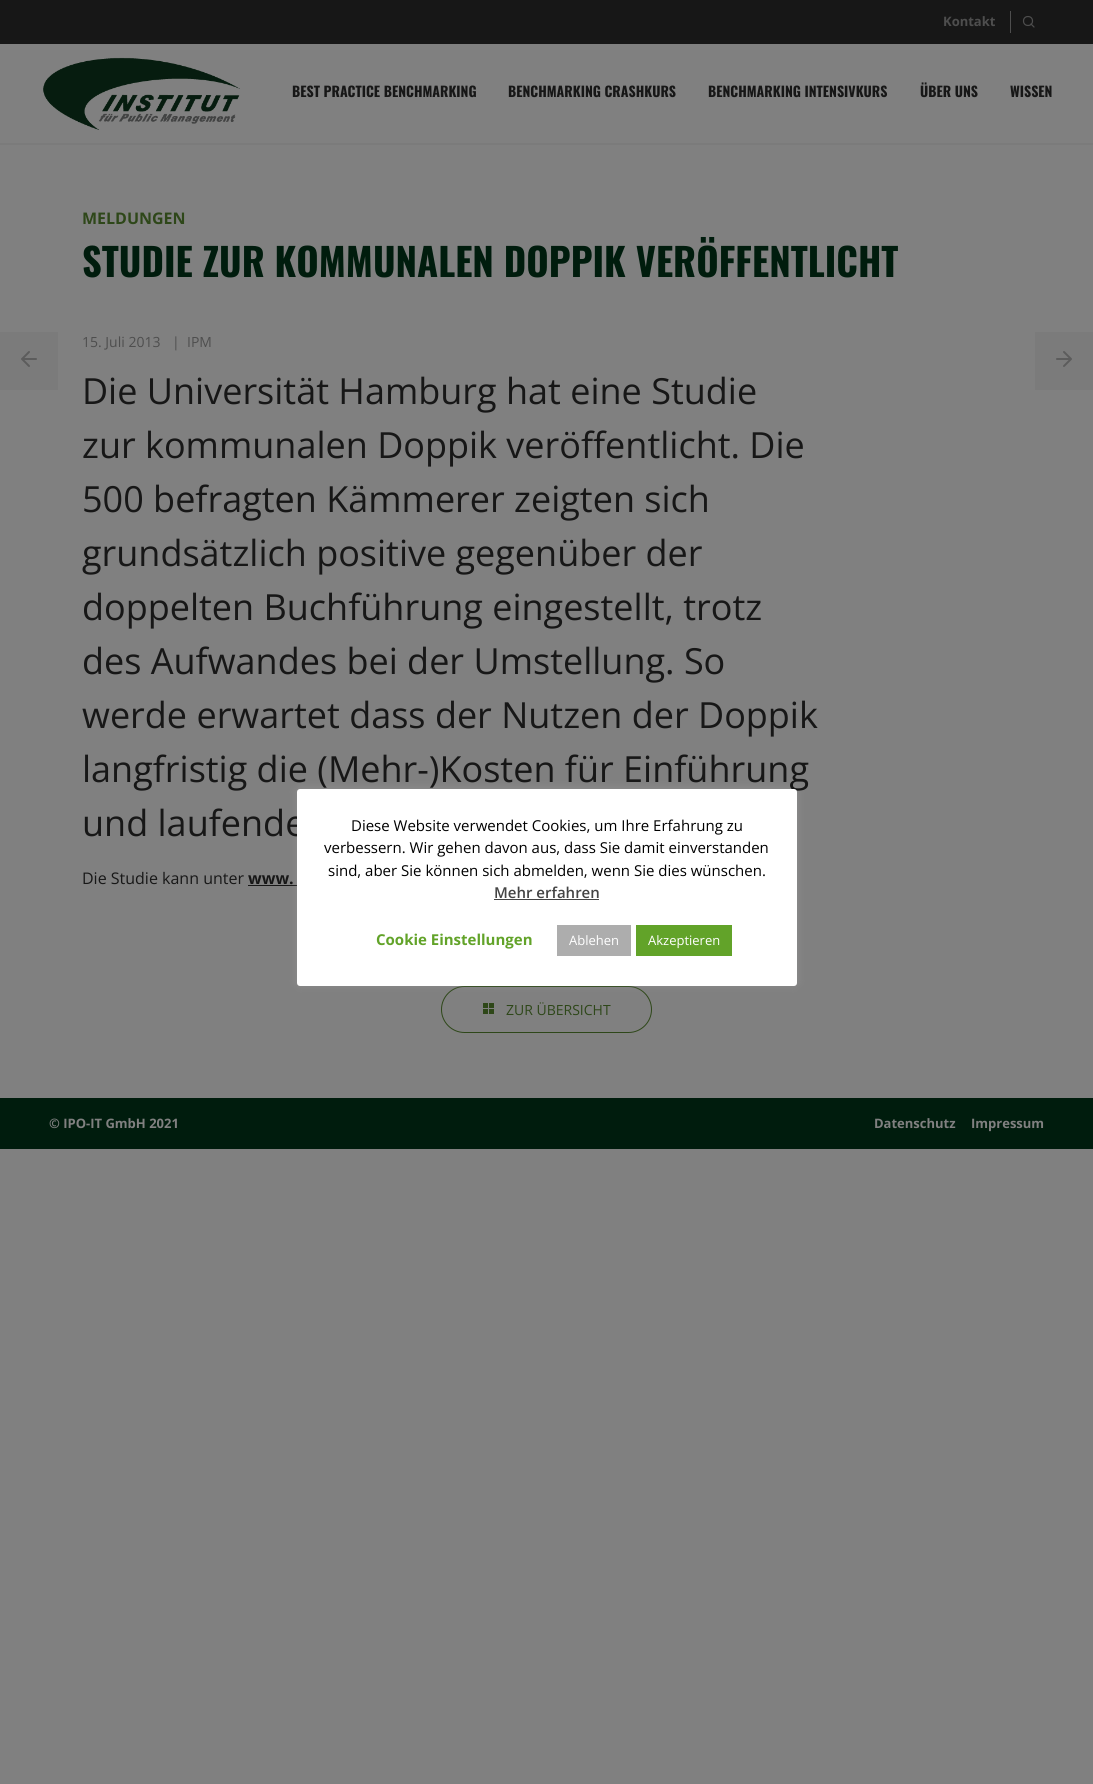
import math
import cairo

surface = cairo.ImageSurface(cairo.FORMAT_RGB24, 1093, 1784)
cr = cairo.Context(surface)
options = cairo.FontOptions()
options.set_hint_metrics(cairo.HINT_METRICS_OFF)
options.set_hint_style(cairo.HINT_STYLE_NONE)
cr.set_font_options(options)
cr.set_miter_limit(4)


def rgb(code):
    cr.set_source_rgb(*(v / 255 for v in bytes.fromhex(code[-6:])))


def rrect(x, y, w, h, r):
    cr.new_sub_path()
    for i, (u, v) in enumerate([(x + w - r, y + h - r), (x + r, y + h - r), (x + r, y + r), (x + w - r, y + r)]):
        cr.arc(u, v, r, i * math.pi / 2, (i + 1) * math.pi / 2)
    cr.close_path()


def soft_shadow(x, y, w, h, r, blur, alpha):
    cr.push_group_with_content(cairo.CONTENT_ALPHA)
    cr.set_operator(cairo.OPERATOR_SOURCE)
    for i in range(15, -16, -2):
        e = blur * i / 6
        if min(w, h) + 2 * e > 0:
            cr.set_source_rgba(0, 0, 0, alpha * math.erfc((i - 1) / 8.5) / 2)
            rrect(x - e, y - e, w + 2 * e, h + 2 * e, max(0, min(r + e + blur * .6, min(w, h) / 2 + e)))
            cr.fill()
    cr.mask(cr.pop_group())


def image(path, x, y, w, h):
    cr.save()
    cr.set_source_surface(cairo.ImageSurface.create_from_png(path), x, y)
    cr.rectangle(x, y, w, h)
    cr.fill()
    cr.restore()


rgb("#808080")
cr.paint()
for x, y, w, h, color in [
    (0, 143, 1093, 2, "#7b7b7b"),
    (0, 0, 1093, 44, "#171717"),
    (1010, 11, 1, 22, "#4e4e4e"),
]:
    rgb(color)
    cr.rectangle(x, y, w, h)
    cr.fill()
cr.arc(1028, 21, 4.5, 0, 2 * math.pi)
cr.set_line_width(1.2)
cr.stroke()
cr.new_path()
cr.move_to(1034, 27)
cr.line_to(1031, 24)
cr.set_line_cap(cairo.LINE_CAP_ROUND)
cr.set_line_join(cairo.LINE_JOIN_ROUND)
cr.stroke()
image("img/1.png", 43, 57, 197, 73)
rgb("#7b7b7b")
cr.rectangle(0, 332, 58, 58)
cr.fill()
cr.new_path()
cr.move_to(36, 359)
cr.line_to(22, 359)
cr.move_to(29, 366)
cr.line_to(22, 359)
cr.line_to(29, 352)
rgb("#5c5c5c")
cr.set_line_width(2)
cr.stroke()
rgb("#7b7b7b")
cr.rectangle(1035, 332, 58, 58)
cr.fill()
cr.new_path()
cr.move_to(1057, 359)
cr.line_to(1071, 359)
cr.move_to(1064, 352)
cr.line_to(1071, 359)
cr.line_to(1064, 366)
rgb("#5c5c5c")
cr.stroke()
rgb("#171717")
cr.rectangle(248, 885, 49, 1)
cr.fill()
rrect(441.5, 986.5, 210, 46, 23)
rgb("#2e4719")
cr.set_line_width(1)
cr.set_line_cap(cairo.LINE_CAP_BUTT)
cr.set_line_join(cairo.LINE_JOIN_MITER)
cr.stroke()
image("img/2.png", 483, 1003, 11, 11)
rgb("#acabab")
soft_shadow(297, 788, 500, 197, 3, 5, 0.3)
rgb("#001c0d")
cr.rectangle(0, 1098, 1093, 51)
cr.fill()
cr.select_font_face("Open Sans", cairo.FONT_SLANT_NORMAL, cairo.FONT_WEIGHT_BOLD)
cr.set_font_size(13)
rgb("#4e4e4e")
cr.move_to(943, 26)
cr.show_text("Kontakt")
cr.select_font_face("Oswald", cairo.FONT_SLANT_NORMAL, cairo.FONT_WEIGHT_BOLD)
cr.set_font_size(14)
rgb("#171717")
for x, y, s in [
    (292, 97, "BEST PRACTICE BENCHMARKING"),
    (508, 97, "BENCHMARKING CRASHKURS"),
    (708, 97, "BENCHMARKING INTENSIVKURS"),
    (920, 97, "ÜBER UNS"),
    (1010, 97, "WISSEN"),
]:
    cr.move_to(x, y)
    cr.show_text(s)
cr.select_font_face("Open Sans", cairo.FONT_SLANT_NORMAL, cairo.FONT_WEIGHT_BOLD)
cr.set_font_size(16)
rgb("#2e4719")
cr.move_to(82, 224)
cr.show_text("MELDUNGEN")
cr.select_font_face("Oswald", cairo.FONT_SLANT_NORMAL, cairo.FONT_WEIGHT_BOLD)
cr.set_font_size(38.4)
rgb("#001c0d")
cr.move_to(82, 277)
cr.show_text("STUDIE ZUR KOMMUNALEN DOPPIK VERÖFFENTLICHT")
cr.select_font_face("Open Sans")
cr.set_font_size(14)
rgb("#4e4e4e")
for x, y, s in [
    (82, 347, "15. Juli 2013"),
    (172, 347, "|"),
    (187, 347, "IPM"),
]:
    cr.move_to(x, y)
    cr.show_text(s)
cr.set_font_size(36)
rgb("#171717")
for x, y, s in [
    (82, 404, "Die Universität Hamburg hat eine Studie"),
    (82, 458, "zur kommunalen Doppik veröffentlicht. Die"),
    (82, 512, "500 befragten Kämmerer zeigten sich"),
    (82, 566, "grundsätzlich positive gegenüber der"),
    (82, 620, "doppelten Buchführung eingestellt, trotz"),
    (82, 674, "des Aufwandes bei der Umstellung. So"),
    (82, 728, "werde erwartet dass der Nutzen der Doppik"),
    (82, 782, "langfristig die (Mehr-)Kosten für Einführung"),
    (82, 836, "und laufende"),
]:
    cr.move_to(x, y)
    cr.show_text(s)
cr.set_font_size(16)
cr.move_to(82, 884)
cr.show_text("Die Studie kann unter")
cr.select_font_face("Open Sans", cairo.FONT_SLANT_NORMAL, cairo.FONT_WEIGHT_BOLD)
cr.move_to(248, 884)
cr.show_text("www.")
cr.select_font_face("Open Sans")
cr.set_font_size(14)
rgb("#2e4719")
cr.move_to(506, 1015)
cr.show_text("ZUR ÜBERSICHT")
rgb("#ffffff")
rrect(297, 789, 500, 197, 3)
cr.fill()
cr.set_font_size(15)
rgb("#000000")
for x, y, s in [
    (351, 831, "Diese Website verwendet Cookies, um Ihre Erfahrung zu"),
    (324, 853, "verbessern. Wir gehen davon aus, dass Sie damit einverstanden"),
    (328, 876, "sind, aber Sie können sich abmelden, wenn Sie dies wünschen."),
]:
    cr.move_to(x, y)
    cr.show_text(s)
cr.select_font_face("Open Sans SemiBold")
rgb("#444444")
cr.move_to(494, 898)
cr.show_text("Mehr erfahren")
cr.rectangle(494, 899, 105, 1)
cr.fill()
cr.select_font_face("Open Sans", cairo.FONT_SLANT_NORMAL, cairo.FONT_WEIGHT_BOLD)
rgb("#62a329")
cr.move_to(376, 945)
cr.show_text("Cookie Einstellungen")
rgb("#adadad")
cr.rectangle(557, 925, 74, 31)
cr.fill()
cr.select_font_face("Open Sans")
cr.set_font_size(13)
rgb("#ffffff")
cr.move_to(569, 945)
cr.show_text("Ablehen")
rgb("#62a329")
cr.rectangle(636, 925, 96, 31)
cr.fill()
rgb("#ffffff")
cr.move_to(648, 945)
cr.show_text("Akzeptieren")
cr.select_font_face("Open Sans", cairo.FONT_SLANT_NORMAL, cairo.FONT_WEIGHT_BOLD)
rgb("#808080")
for x, y, s in [
    (49, 1128, "© IPO-IT GmbH 2021"),
    (874, 1128, "Datenschutz"),
    (971, 1128, "Impressum"),
]:
    cr.move_to(x, y)
    cr.show_text(s)
surface.write_to_png("page.png")
